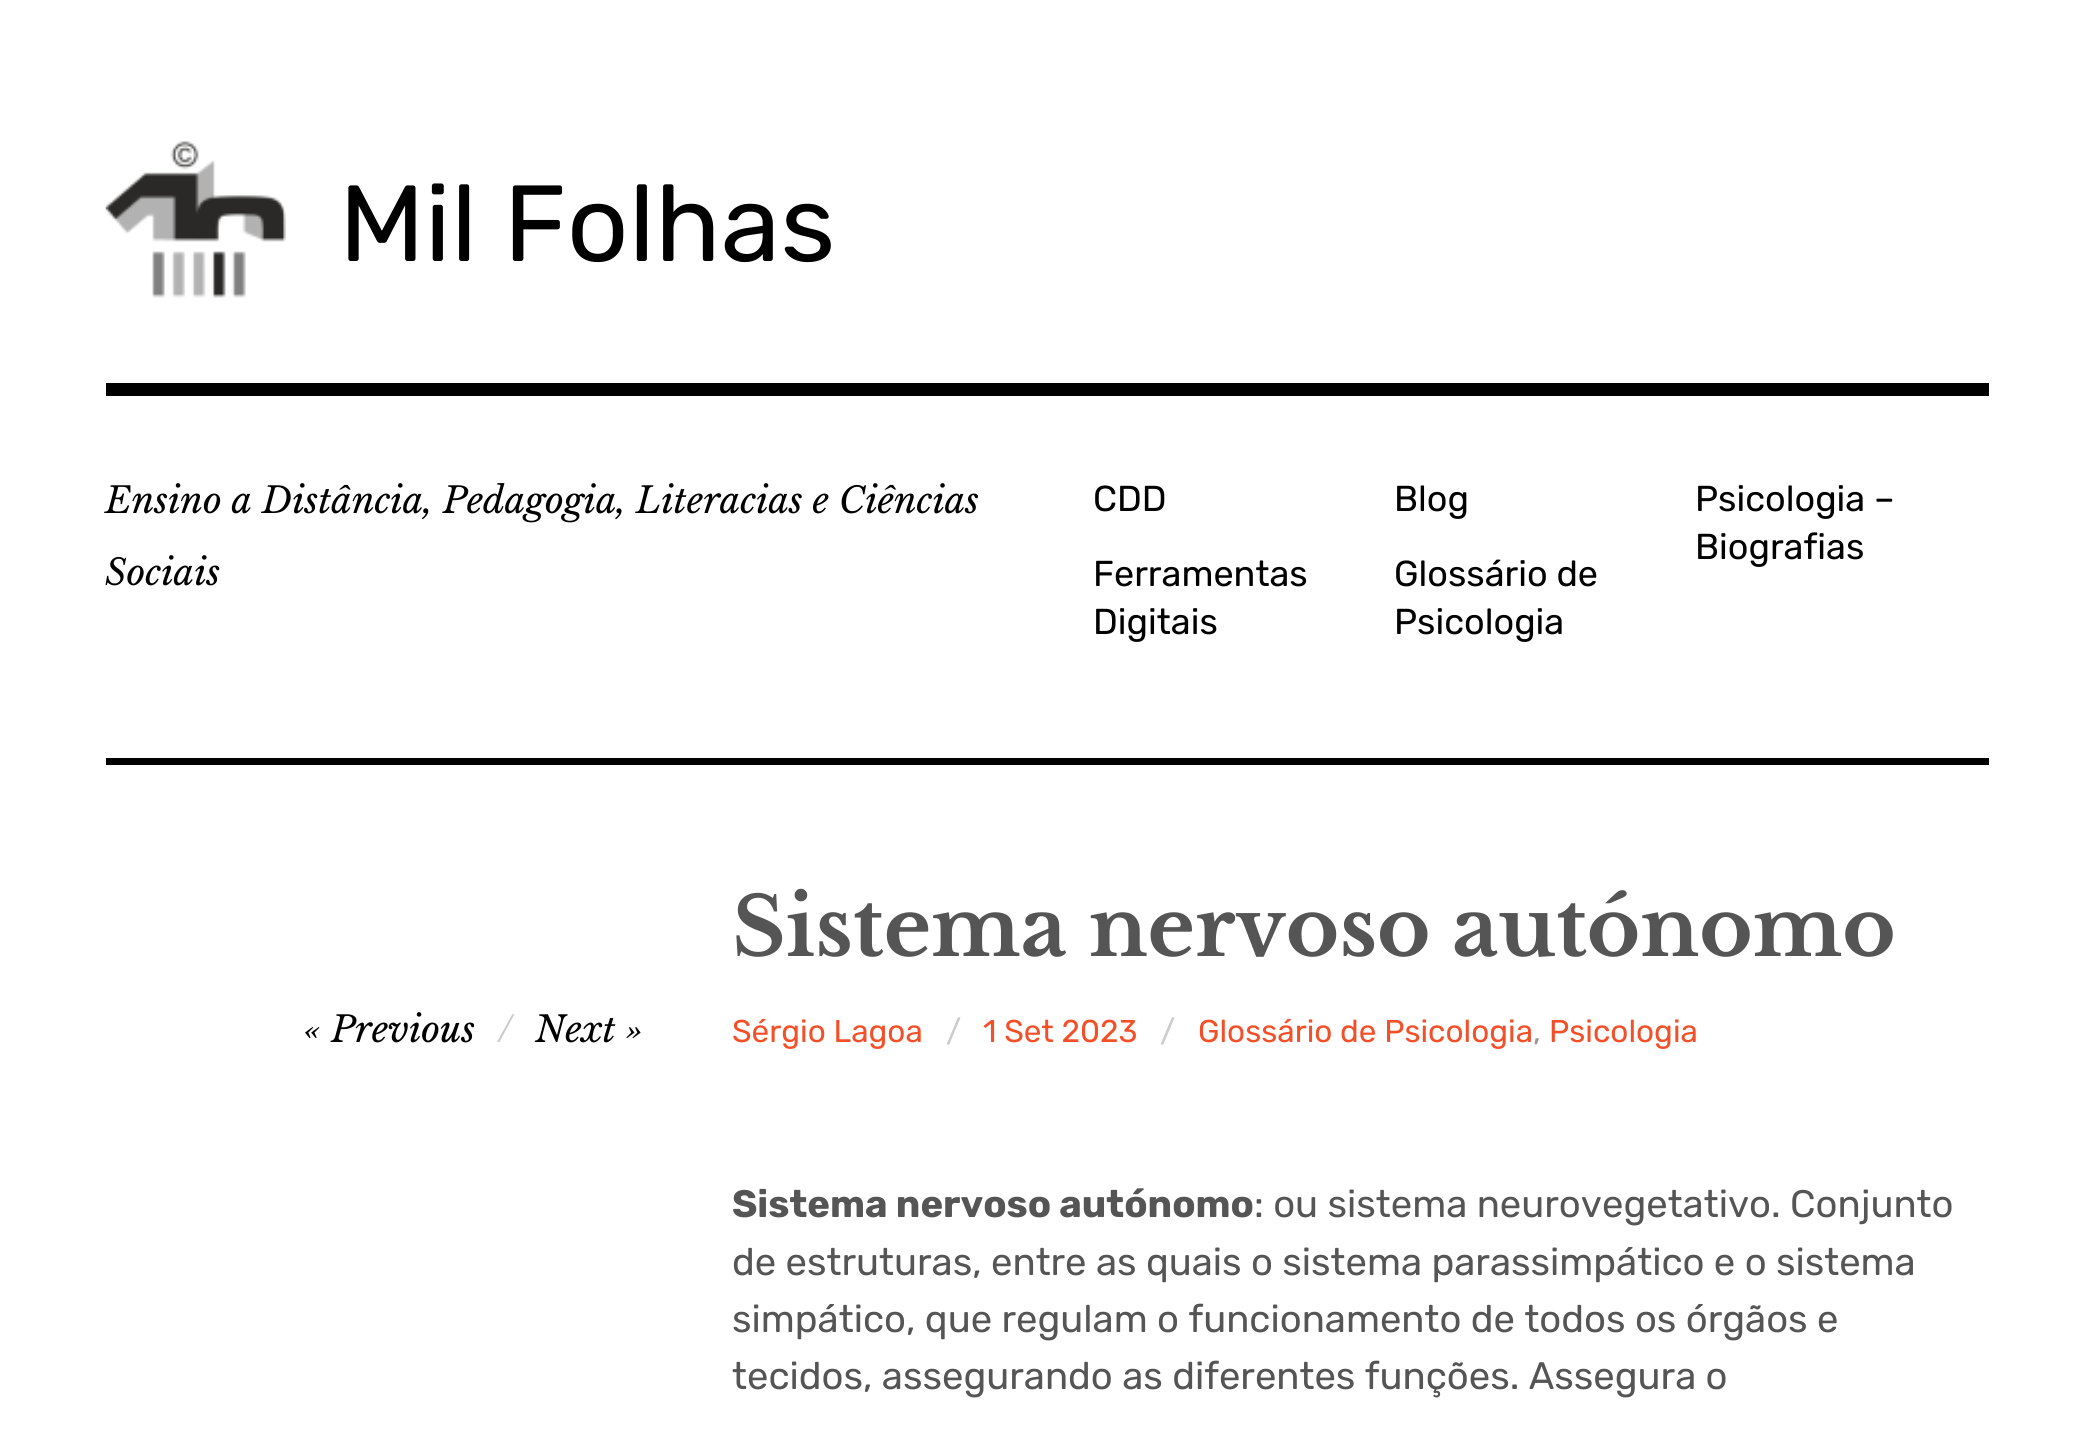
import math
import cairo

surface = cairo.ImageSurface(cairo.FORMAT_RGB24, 2092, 1433)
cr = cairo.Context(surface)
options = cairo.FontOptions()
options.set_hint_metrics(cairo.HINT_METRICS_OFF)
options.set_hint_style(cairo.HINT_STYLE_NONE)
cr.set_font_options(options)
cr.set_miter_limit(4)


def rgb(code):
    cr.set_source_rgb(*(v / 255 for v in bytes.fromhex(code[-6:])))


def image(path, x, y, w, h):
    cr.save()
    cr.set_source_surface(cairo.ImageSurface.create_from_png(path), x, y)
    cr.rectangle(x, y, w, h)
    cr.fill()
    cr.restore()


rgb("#ffffff")
cr.paint()
rgb("#000000")
cr.rectangle(106, 383, 1883, 13)
cr.fill()
image("img/1.png", 105, 141, 181, 157)
cr.rectangle(106, 758, 1883, 7)
cr.fill()
cr.select_font_face("Rubik")
cr.set_font_size(108)
cr.move_to(339, 261)
cr.show_text("Mil Folhas")
cr.select_font_face("Libre Baskerville", cairo.FONT_SLANT_ITALIC)
cr.set_font_size(36)
cr.move_to(105, 513)
cr.show_text("Ensino a Distância, Pedagogia, Literacias e Ciências")
cr.move_to(105, 585)
cr.show_text("Sociais")
cr.select_font_face("Rubik")
for x, y, s in [
    (1093, 511, "CDD"),
    (1093, 586, "Ferramentas"),
    (1093, 634, "Digitais"),
    (1394, 511, "Blog"),
    (1394, 586, "Glossário de"),
    (1394, 634, "Psicologia"),
    (1695, 511, "Psicologia –"),
    (1695, 559, "Biografias"),
]:
    cr.move_to(x, y)
    cr.show_text(s)
cr.select_font_face("Libre Baskerville", cairo.FONT_SLANT_NORMAL, cairo.FONT_WEIGHT_BOLD)
cr.set_font_size(81)
rgb("#555555")
cr.move_to(732, 956)
cr.show_text("Sistema nervoso autónomo")
cr.select_font_face("Libre Baskerville", cairo.FONT_SLANT_ITALIC)
cr.set_font_size(36)
rgb("#000000")
cr.move_to(304, 1042)
cr.show_text("« Previous")
rgb("#cccccc")
cr.move_to(498, 1042)
cr.show_text("/")
rgb("#000000")
cr.move_to(535, 1042)
cr.show_text("Next »")
cr.select_font_face("Rubik")
cr.set_font_size(31.5)
rgb("#f35029")
cr.move_to(732, 1042)
cr.show_text("Sérgio Lagoa")
rgb("#cccccc")
cr.move_to(946, 1042)
cr.show_text("/")
rgb("#f35029")
cr.move_to(983, 1042)
cr.show_text("1 Set 2023")
rgb("#cccccc")
cr.move_to(1160, 1042)
cr.show_text("/")
rgb("#f35029")
cr.move_to(1198, 1042)
cr.show_text("Glossário de Psicologia")
rgb("#999999")
cr.move_to(1533, 1042)
cr.show_text(",")
rgb("#f35029")
cr.move_to(1549, 1042)
cr.show_text("Psicologia")
cr.select_font_face("Rubik", cairo.FONT_SLANT_NORMAL, cairo.FONT_WEIGHT_BOLD)
cr.set_font_size(38.25)
rgb("#555555")
cr.move_to(732, 1217)
cr.show_text("Sistema nervoso autónomo")
cr.select_font_face("Rubik")
for x, y, s in [
    (1254, 1217, ": ou sistema neurovegetativo. Conjunto"),
    (732, 1275, "de estruturas, entre as quais o sistema parassimpático e o sistema"),
    (732, 1332, "simpático, que regulam o funcionamento de todos os órgãos e"),
    (732, 1389, "tecidos, assegurando as diferentes funções. Assegura o"),
]:
    cr.move_to(x, y)
    cr.show_text(s)
surface.write_to_png("page.png")
